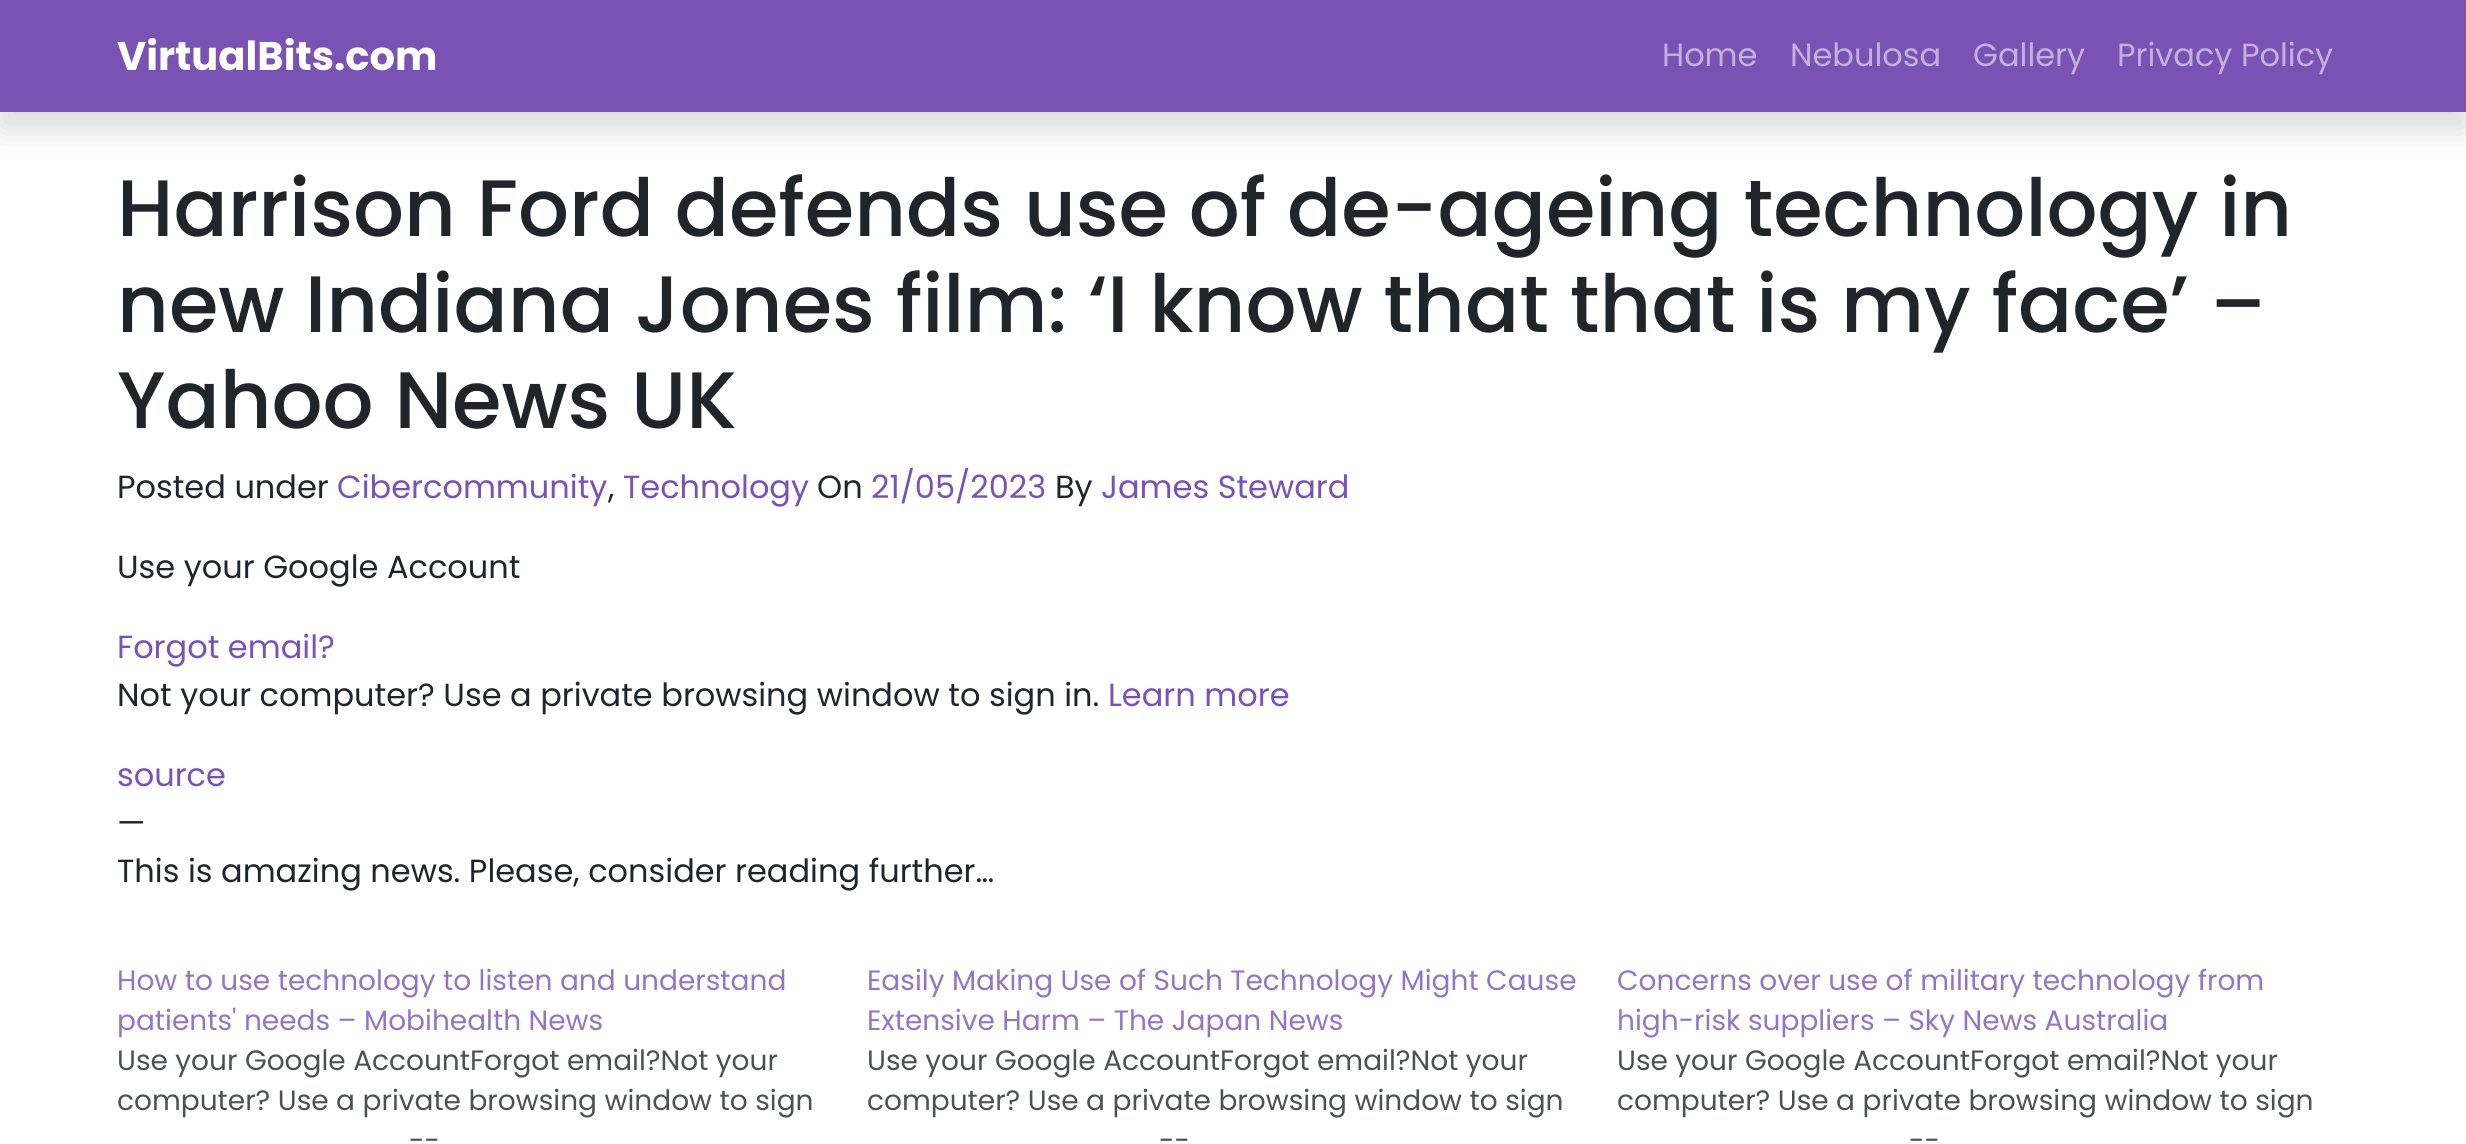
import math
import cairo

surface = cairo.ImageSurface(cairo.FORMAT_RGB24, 2466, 1144)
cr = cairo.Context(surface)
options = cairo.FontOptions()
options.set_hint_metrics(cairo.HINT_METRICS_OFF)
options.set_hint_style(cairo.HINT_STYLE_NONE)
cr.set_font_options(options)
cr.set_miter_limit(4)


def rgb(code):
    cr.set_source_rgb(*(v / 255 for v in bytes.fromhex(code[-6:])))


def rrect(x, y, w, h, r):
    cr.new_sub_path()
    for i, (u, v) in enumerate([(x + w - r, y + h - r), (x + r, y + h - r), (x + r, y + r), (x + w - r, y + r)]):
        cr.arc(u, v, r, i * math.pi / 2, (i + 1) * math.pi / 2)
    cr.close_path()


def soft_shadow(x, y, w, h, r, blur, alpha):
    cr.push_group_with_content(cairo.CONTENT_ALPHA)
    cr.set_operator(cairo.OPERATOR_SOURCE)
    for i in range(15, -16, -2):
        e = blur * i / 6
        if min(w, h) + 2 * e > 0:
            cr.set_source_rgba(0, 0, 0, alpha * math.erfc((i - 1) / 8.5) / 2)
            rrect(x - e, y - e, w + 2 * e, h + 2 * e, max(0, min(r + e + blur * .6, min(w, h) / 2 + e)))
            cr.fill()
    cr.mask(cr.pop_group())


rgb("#ffffff")
cr.paint()
rgb("#000000")
soft_shadow(0, 16, 2466, 112, 0, 16, 0.15)
rgb("#7952b3")
cr.rectangle(0, 0, 2466, 112)
cr.fill()
cr.select_font_face("Poppins", cairo.FONT_SLANT_NORMAL, cairo.FONT_WEIGHT_BOLD)
cr.set_font_size(40)
rgb("#ffffff")
cr.move_to(117, 70)
cr.show_text("VirtualBits.com")
cr.select_font_face("Poppins")
cr.set_font_size(32)
rgb("#c3b1dd")
for x, y, s in [
    (1662, 66, "Home"),
    (1790, 66, "Nebulosa"),
    (1973, 66, "Gallery"),
    (2117, 66, "Privacy Policy"),
]:
    cr.move_to(x, y)
    cr.show_text(s)
cr.select_font_face("Poppins Medium")
cr.set_font_size(80)
rgb("#212529")
for x, y, s in [
    (117, 236, "Harrison Ford defends use of de-ageing technology in"),
    (117, 332, "new Indiana Jones film: ‘I know that that is my face’ –"),
    (117, 428, "Yahoo News UK"),
]:
    cr.move_to(x, y)
    cr.show_text(s)
cr.select_font_face("Poppins")
cr.set_font_size(32)
cr.move_to(117, 498)
cr.show_text("Posted under")
rgb("#7952b3")
cr.move_to(337, 498)
cr.show_text("Cibercommunity")
rgb("#212529")
cr.move_to(608, 498)
cr.show_text(",")
rgb("#7952b3")
cr.move_to(623, 498)
cr.show_text("Technology")
rgb("#212529")
cr.move_to(817, 498)
cr.show_text("On")
rgb("#7952b3")
cr.move_to(871, 498)
cr.show_text("21/05/2023")
rgb("#212529")
cr.move_to(1055, 498)
cr.show_text("By")
rgb("#7952b3")
cr.move_to(1101, 498)
cr.show_text("James Steward")
rgb("#212529")
cr.move_to(117, 578)
cr.show_text("Use your Google Account")
rgb("#7952b3")
cr.move_to(117, 658)
cr.show_text("Forgot email?")
rgb("#212529")
cr.move_to(117, 706)
cr.show_text("Not your computer? Use a private browsing window to sign in.")
rgb("#7952b3")
cr.move_to(1108, 706)
cr.show_text("Learn more")
cr.move_to(117, 786)
cr.show_text("source")
rgb("#212529")
cr.move_to(117, 834)
cr.show_text("—")
cr.move_to(117, 882)
cr.show_text("This is amazing news. Please, consider reading further…")
cr.set_font_size(28)
rgb("#9475c2")
cr.move_to(117, 990)
cr.show_text("How to use technology to listen and understand")
cr.move_to(117, 1030)
cr.show_text("patients' needs – Mobihealth News")
rgb("#4d5154")
for x, y, s in [
    (117, 1070, "Use your Google AccountForgot email?Not your"),
    (117, 1110, "computer? Use a private browsing window to sign"),
    (409, 1150, "--"),
]:
    cr.move_to(x, y)
    cr.show_text(s)
rgb("#9475c2")
cr.move_to(867, 990)
cr.show_text("Easily Making Use of Such Technology Might Cause")
cr.move_to(867, 1030)
cr.show_text("Extensive Harm – The Japan News")
rgb("#4d5154")
for x, y, s in [
    (867, 1070, "Use your Google AccountForgot email?Not your"),
    (867, 1110, "computer? Use a private browsing window to sign"),
    (1159, 1150, "--"),
]:
    cr.move_to(x, y)
    cr.show_text(s)
rgb("#9475c2")
cr.move_to(1617, 990)
cr.show_text("Concerns over use of military technology from")
cr.move_to(1617, 1030)
cr.show_text("high-risk suppliers – Sky News Australia")
rgb("#4d5154")
for x, y, s in [
    (1617, 1070, "Use your Google AccountForgot email?Not your"),
    (1617, 1110, "computer? Use a private browsing window to sign"),
    (1909, 1150, "--"),
]:
    cr.move_to(x, y)
    cr.show_text(s)
surface.write_to_png("page.png")
